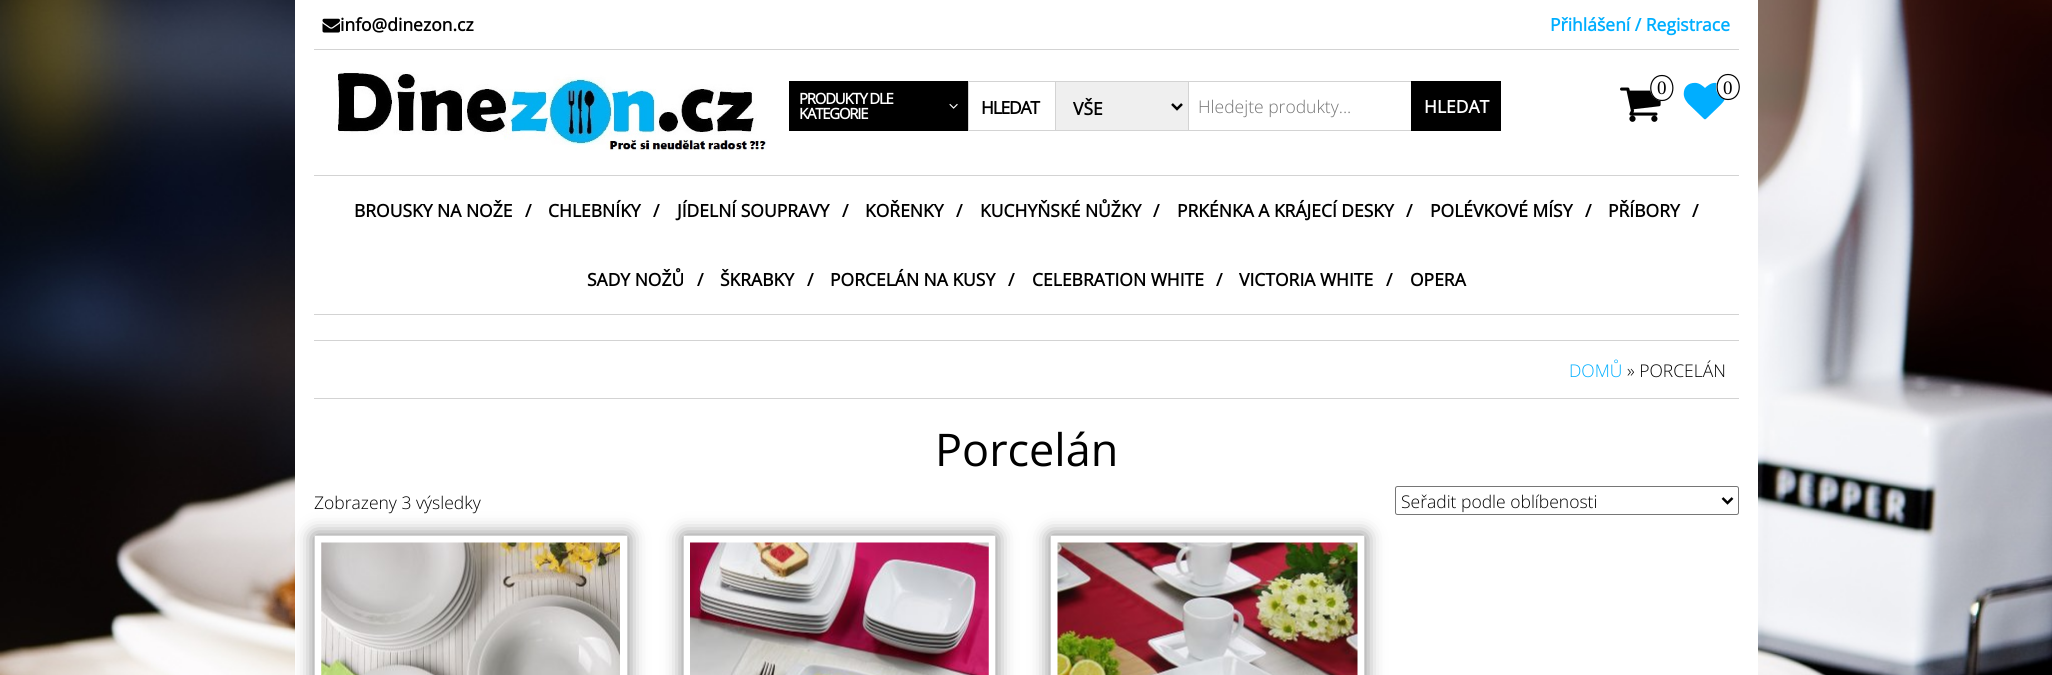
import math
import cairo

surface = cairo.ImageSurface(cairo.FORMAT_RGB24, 2052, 675)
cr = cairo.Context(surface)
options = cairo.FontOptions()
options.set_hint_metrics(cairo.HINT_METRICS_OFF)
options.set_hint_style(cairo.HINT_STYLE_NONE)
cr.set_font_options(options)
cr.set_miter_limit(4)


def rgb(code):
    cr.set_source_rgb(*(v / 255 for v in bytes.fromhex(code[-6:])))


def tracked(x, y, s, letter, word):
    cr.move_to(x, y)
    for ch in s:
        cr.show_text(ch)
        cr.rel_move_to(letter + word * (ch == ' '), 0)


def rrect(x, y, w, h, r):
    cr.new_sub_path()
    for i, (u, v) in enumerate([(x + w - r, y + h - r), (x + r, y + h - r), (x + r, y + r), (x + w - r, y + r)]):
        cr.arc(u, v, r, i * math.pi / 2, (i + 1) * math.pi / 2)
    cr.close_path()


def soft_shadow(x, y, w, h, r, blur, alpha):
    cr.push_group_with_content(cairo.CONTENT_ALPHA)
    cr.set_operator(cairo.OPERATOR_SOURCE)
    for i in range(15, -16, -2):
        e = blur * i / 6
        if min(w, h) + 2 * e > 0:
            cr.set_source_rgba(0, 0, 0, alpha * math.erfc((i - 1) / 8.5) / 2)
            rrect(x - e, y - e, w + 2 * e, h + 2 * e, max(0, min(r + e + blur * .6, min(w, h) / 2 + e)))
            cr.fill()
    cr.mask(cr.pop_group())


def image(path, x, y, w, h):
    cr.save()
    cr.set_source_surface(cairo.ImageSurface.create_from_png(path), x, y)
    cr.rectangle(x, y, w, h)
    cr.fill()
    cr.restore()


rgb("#ffffff")
cr.paint()
image("img/1.png", 0, 0, 2052, 675)
rgb("#ffffff")
cr.rectangle(295, 0, 1463, 675)
cr.fill()
rgb("#d3d3d3")
cr.rectangle(314, 49, 1425, 1)
cr.fill()
image("img/2.png", 322, 18, 18, 15)
cr.rectangle(314, 175, 1425, 1)
cr.fill()
image("img/3.png", 338, 72, 429, 79)
image("img/4.png", 1620, 87, 41, 35)
rgb("#ffffff")
cr.new_path()
cr.move_to(1662, 75)
cr.curve_to(1668.5, 75, 1674, 81, 1674, 88)
cr.curve_to(1674, 95, 1668.5, 101, 1662, 101)
cr.curve_to(1655.5, 101, 1650, 95, 1650, 88)
cr.curve_to(1650, 81, 1655.5, 75, 1662, 75)
cr.close_path()
cr.fill()
cr.new_path()
cr.move_to(1662, 75.5)
cr.curve_to(1676.5, 75.5, 1676.5, 100.5, 1662, 100.5)
cr.curve_to(1647, 100.5, 1647, 75.5, 1662, 75.5)
cr.close_path()
rgb("#000000")
cr.set_line_width(1.2)
cr.stroke()
image("img/5.png", 1683, 82, 42, 38)
rgb("#ffffff")
cr.new_path()
cr.move_to(1728, 74)
cr.curve_to(1734.5, 74, 1740, 80, 1740, 87)
cr.curve_to(1740, 94, 1734.5, 100, 1728, 100)
cr.curve_to(1721.5, 100, 1716, 94, 1716, 87)
cr.curve_to(1716, 80, 1721.5, 74, 1728, 74)
cr.close_path()
cr.fill()
cr.new_path()
cr.move_to(1728, 74.5)
cr.curve_to(1743, 74.5, 1743, 99.5, 1728, 99.5)
cr.curve_to(1713.5, 99.5, 1713.5, 74.5, 1728, 74.5)
cr.close_path()
rgb("#000000")
cr.stroke()
cr.rectangle(789, 81, 179, 50)
cr.fill()
image("img/6.png", 949, 103, 9, 6)
cr.rectangle(968.5, 81.5, 87, 49)
rgb("#d3d3d3")
cr.set_line_width(1)
cr.stroke()
rgb("#efefef")
cr.rectangle(1055.5, 81.5, 133, 49)
cr.fill_preserve()
rgb("#d3d3d3")
cr.stroke()
cr.new_path()
cr.move_to(1172, 104)
cr.line_to(1177, 109)
cr.line_to(1182, 104)
rgb("#000000")
cr.set_line_width(2.5)
cr.stroke()
cr.rectangle(1188.5, 81.5, 310, 49)
rgb("#d3d3d3")
cr.set_line_width(1)
cr.stroke()
for x, y, w, h, color in [
    (1411, 81, 90, 50, "#000000"),
    (314, 314, 1425, 1, "#d3d3d3"),
    (314, 340, 1425, 1, "#d3d3d3"),
    (314, 398, 1425, 1, "#d3d3d3"),
]:
    rgb(color)
    cr.rectangle(x, y, w, h)
    cr.fill()
rrect(1395.5, 486.5, 343, 28, 2)
rgb("#767676")
cr.stroke()
cr.new_path()
cr.move_to(1722.5, 498)
cr.line_to(1727.5, 503)
cr.line_to(1732.5, 498)
rgb("#000000")
cr.set_line_width(2.5)
cr.stroke()
cr.save()
cr.set_fill_rule(cairo.FILL_RULE_EVEN_ODD)
cr.new_path()
cr.move_to(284, 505)
cr.line_to(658, 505)
cr.line_to(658, 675)
cr.line_to(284, 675)
cr.close_path()
cr.move_to(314, 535)
cr.line_to(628, 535)
cr.line_to(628, 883)
cr.line_to(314, 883)
cr.close_path()
cr.clip()
rgb("#000000")
soft_shadow(314, 535, 314, 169, 0, 9.5, 0.5)
cr.restore()
cr.rectangle(314.5, 535.5, 313, 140)
rgb("#d3d3d3")
cr.set_line_width(1)
cr.stroke()
image("img/7.png", 321, 542, 299, 133)
cr.save()
cr.set_fill_rule(cairo.FILL_RULE_EVEN_ODD)
cr.new_path()
cr.move_to(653, 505)
cr.line_to(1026, 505)
cr.line_to(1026, 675)
cr.line_to(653, 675)
cr.close_path()
cr.move_to(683, 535)
cr.line_to(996, 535)
cr.line_to(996, 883)
cr.line_to(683, 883)
cr.close_path()
cr.clip()
rgb("#000000")
soft_shadow(683, 535, 313, 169, 0, 9.5, 0.5)
cr.restore()
cr.rectangle(683.5, 535.5, 312, 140)
cr.stroke()
image("img/8.png", 690, 542, 299, 133)
cr.save()
cr.set_fill_rule(cairo.FILL_RULE_EVEN_ODD)
cr.new_path()
cr.move_to(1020, 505)
cr.line_to(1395, 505)
cr.line_to(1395, 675)
cr.line_to(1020, 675)
cr.close_path()
cr.move_to(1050, 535)
cr.line_to(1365, 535)
cr.line_to(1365, 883)
cr.line_to(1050, 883)
cr.close_path()
cr.clip()
rgb("#000000")
soft_shadow(1050, 535, 315, 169, 0, 9.5, 0.5)
cr.restore()
cr.rectangle(1050.5, 535.5, 314, 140)
cr.stroke()
image("img/9.png", 1057, 542, 301, 133)
cr.select_font_face("Open Sans", cairo.FONT_SLANT_NORMAL, cairo.FONT_WEIGHT_BOLD)
cr.set_font_size(17.5)
rgb("#000000")
cr.move_to(340, 31)
cr.show_text("info@dinezon.cz")
rgb("#00aeff")
cr.move_to(1550, 31)
cr.show_text("Přihlášení / Registrace")
cr.select_font_face("Liberation Serif")
cr.set_font_size(19)
rgb("#000000")
cr.move_to(1657, 94)
cr.show_text("0")
cr.move_to(1723, 94)
cr.show_text("0")
cr.select_font_face("Open Sans", cairo.FONT_SLANT_NORMAL, cairo.FONT_WEIGHT_BOLD)
cr.set_font_size(15)
rgb("#ffffff")
tracked(799, 104, "PRODUKTY DLE", -1.25, 0)
tracked(799, 119, "KATEGORIE", -1.25, 0)
cr.set_font_size(17.5)
rgb("#000000")
tracked(981, 114, "HLEDAT", -1.25, 0)
cr.move_to(1073, 115)
cr.show_text("VŠE")
cr.select_font_face("Open Sans Light")
rgb("#757575")
cr.move_to(1198, 113)
cr.show_text("Hledejte produkty...")
cr.select_font_face("Open Sans", cairo.FONT_SLANT_NORMAL, cairo.FONT_WEIGHT_BOLD)
rgb("#ffffff")
cr.move_to(1424, 113)
cr.show_text("HLEDAT")
rgb("#000000")
for x, y, s in [
    (354, 217, "BROUSKY NA NOŽE"),
    (525, 217, "/"),
    (548, 217, "CHLEBNÍKY"),
    (653, 217, "/"),
    (677, 217, "JÍDELNÍ SOUPRAVY"),
    (842, 217, "/"),
    (865, 217, "KOŘENKY"),
    (956, 217, "/"),
    (980, 217, "KUCHYŇSKÉ NŮŽKY"),
    (1153, 217, "/"),
    (1177, 217, "PRKÉNKA A KRÁJECÍ DESKY"),
    (1406, 217, "/"),
    (1430, 217, "POLÉVKOVÉ MÍSY"),
    (1585, 217, "/"),
    (1608, 217, "PŘÍBORY"),
    (1692, 217, "/"),
    (587, 286, "SADY NOŽŮ"),
    (697, 286, "/"),
    (720, 286, "ŠKRABKY"),
    (807, 286, "/"),
    (830, 286, "PORCELÁN NA KUSY"),
    (1008, 286, "/"),
    (1032, 286, "CELEBRATION WHITE"),
    (1216, 286, "/"),
    (1239, 286, "VICTORIA WHITE"),
    (1386, 286, "/"),
    (1410, 286, "OPERA"),
]:
    cr.move_to(x, y)
    cr.show_text(s)
cr.select_font_face("Open Sans Light")
rgb("#00aeff")
cr.move_to(1569, 377)
cr.show_text("DOMŮ")
rgb("#000000")
cr.move_to(1627, 377)
cr.show_text("» PORCELÁN")
cr.select_font_face("Open Sans")
cr.set_font_size(45)
cr.move_to(935, 466)
cr.show_text("Porcelán")
cr.select_font_face("Open Sans Light")
cr.set_font_size(17.5)
cr.move_to(314, 509)
cr.show_text("Zobrazeny 3 výsledky")
cr.move_to(1401, 508)
cr.show_text("Seřadit podle oblíbenosti")
surface.write_to_png("page.png")
